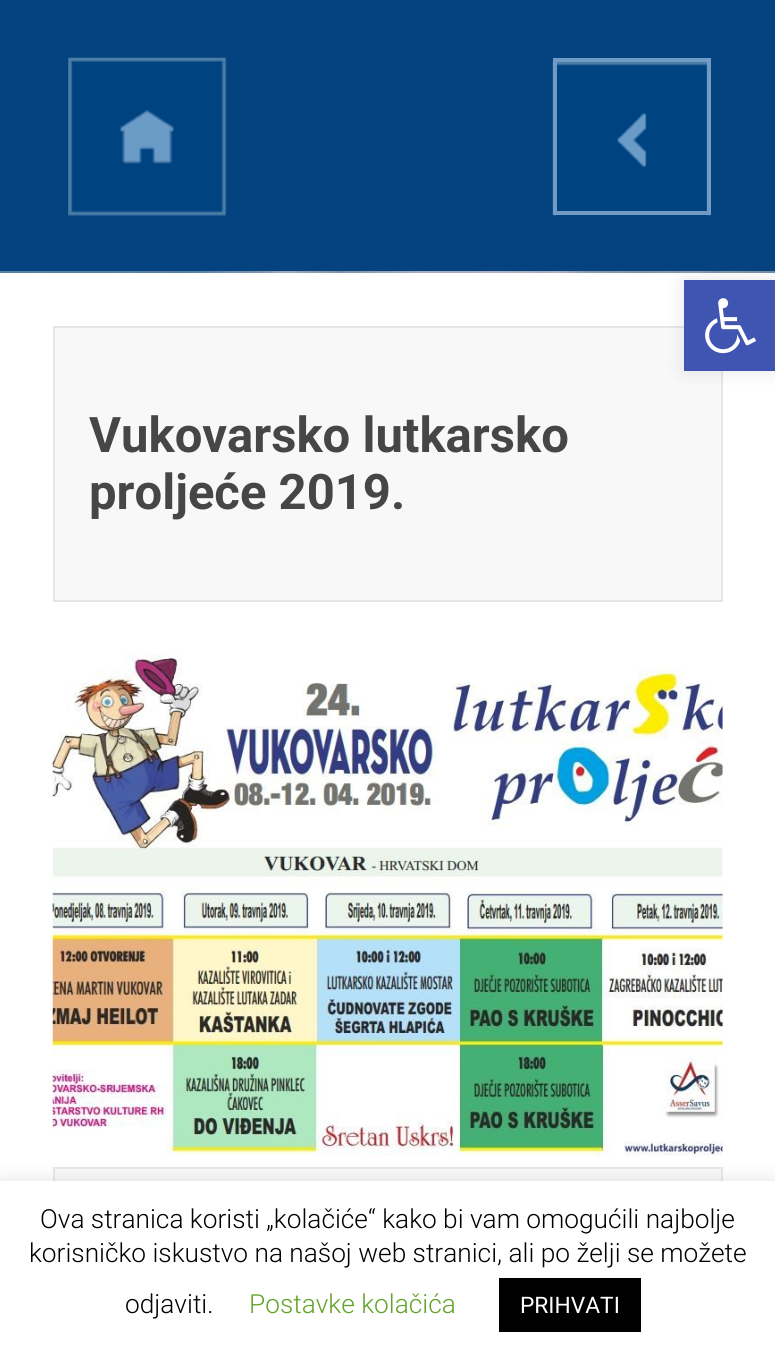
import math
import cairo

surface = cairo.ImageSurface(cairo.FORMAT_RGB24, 775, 1361)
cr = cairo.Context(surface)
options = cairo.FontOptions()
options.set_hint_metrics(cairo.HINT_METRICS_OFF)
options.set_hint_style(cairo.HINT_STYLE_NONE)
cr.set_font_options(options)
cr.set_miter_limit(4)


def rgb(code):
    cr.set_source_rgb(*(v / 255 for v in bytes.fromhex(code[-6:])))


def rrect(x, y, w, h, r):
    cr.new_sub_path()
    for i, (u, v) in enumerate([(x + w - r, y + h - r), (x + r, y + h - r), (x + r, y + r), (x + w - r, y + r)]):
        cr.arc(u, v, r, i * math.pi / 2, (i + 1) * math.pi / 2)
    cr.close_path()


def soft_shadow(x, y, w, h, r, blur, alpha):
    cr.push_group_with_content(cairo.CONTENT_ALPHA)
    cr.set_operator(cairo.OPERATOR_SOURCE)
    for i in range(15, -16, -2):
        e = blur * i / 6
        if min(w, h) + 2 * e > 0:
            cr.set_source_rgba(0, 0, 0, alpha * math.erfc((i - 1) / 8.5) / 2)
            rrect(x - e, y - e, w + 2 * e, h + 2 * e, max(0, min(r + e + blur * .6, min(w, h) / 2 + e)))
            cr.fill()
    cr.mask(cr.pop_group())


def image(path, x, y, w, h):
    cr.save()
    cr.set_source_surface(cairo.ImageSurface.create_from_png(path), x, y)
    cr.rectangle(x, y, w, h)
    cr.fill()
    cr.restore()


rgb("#ffffff")
cr.paint()
image("img/1.png", 0, 271, 775, 2)
rgb("#054380")
cr.rectangle(0, 0, 775, 271)
cr.fill()
image("img/2.png", 68, 57, 159, 159)
image("img/3.png", 552, 61, 159, 155)
cr.rectangle(555, 60, 154, 153)
rgb("#6f9bc5")
cr.set_line_width(4)
cr.stroke()
rgb("#f8f8f8")
cr.rectangle(54, 327, 668, 274)
cr.fill_preserve()
rgb("#e6e6e6")
cr.set_line_width(2)
cr.stroke()
rgb("#000000")
soft_shadow(684, 280, 91, 91, 0, 9, 0.1)
rgb("#4054b2")
cr.rectangle(684, 280, 91, 91)
cr.fill()
image("img/4.png", 705, 298, 51, 56)
image("img/5.png", 52, 655, 671, 501)
rgb("#f8f8f8")
cr.rectangle(55, 1169, 666, 12)
cr.fill()
cr.rectangle(54, 1168, 668, 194)
rgb("#e6e6e6")
cr.stroke()
rgb("#acabab")
soft_shadow(0, 1180, 775, 180, 0, 9, 0.3)
rgb("#ffffff")
cr.rectangle(0, 1181, 775, 180)
cr.fill()
rgb("#000000")
cr.rectangle(499, 1278, 142, 54)
cr.fill()
cr.select_font_face("Roboto", cairo.FONT_SLANT_NORMAL, cairo.FONT_WEIGHT_BOLD)
cr.set_font_size(49)
rgb("#464646")
cr.move_to(89, 452)
cr.show_text("Vukovarsko lutkarsko")
cr.move_to(89, 509)
cr.show_text("proljeće 2019.")
cr.select_font_face("Roboto Light")
cr.set_font_size(26.25)
rgb("#000000")
for x, y, s in [
    (40, 1228, "Ova stranica koristi „kolačiće“ kako bi vam omogućili najbolje"),
    (29, 1262, "korisničko iskustvo na našoj web stranici, ali po želji se možete"),
    (125, 1313, "odjaviti."),
]:
    cr.move_to(x, y)
    cr.show_text(s)
rgb("#62a329")
cr.move_to(249, 1313)
cr.show_text("Postavke kolačića")
cr.select_font_face("Roboto")
cr.set_font_size(22.75)
rgb("#ffffff")
cr.move_to(520, 1313)
cr.show_text("PRIHVATI")
surface.write_to_png("page.png")
